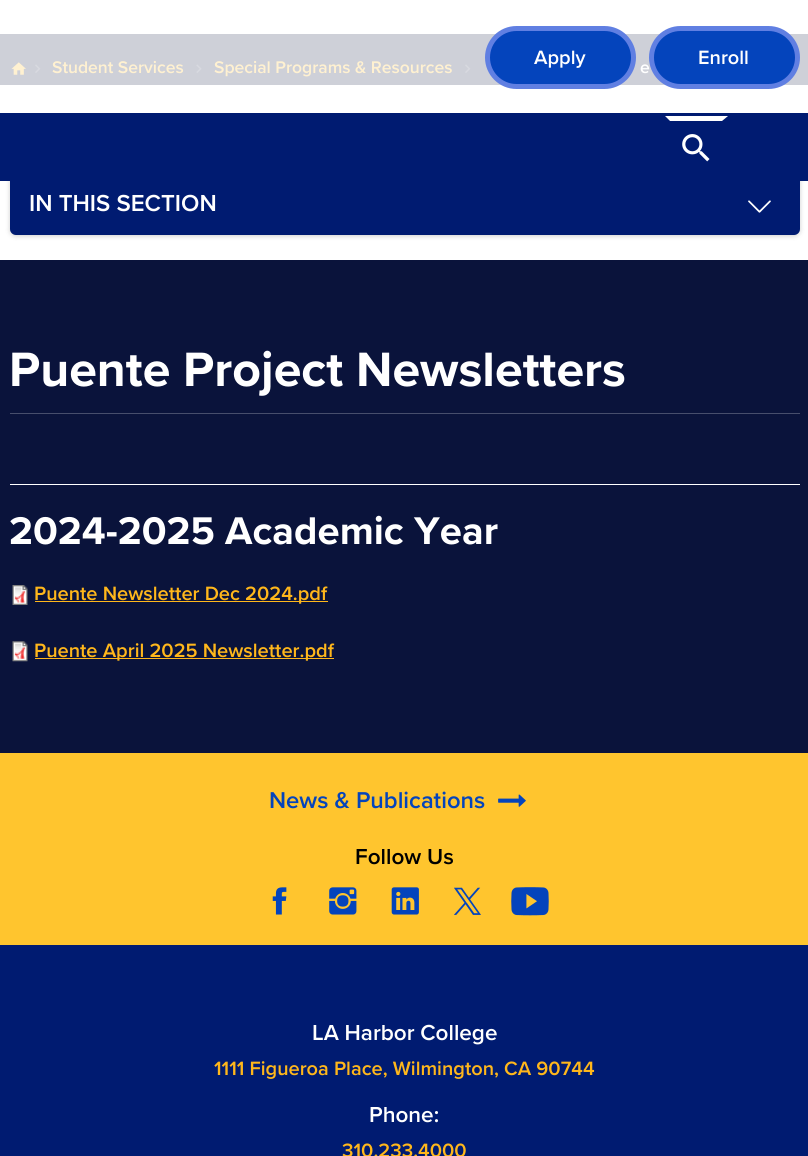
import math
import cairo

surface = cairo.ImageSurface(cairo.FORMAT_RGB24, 808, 1156)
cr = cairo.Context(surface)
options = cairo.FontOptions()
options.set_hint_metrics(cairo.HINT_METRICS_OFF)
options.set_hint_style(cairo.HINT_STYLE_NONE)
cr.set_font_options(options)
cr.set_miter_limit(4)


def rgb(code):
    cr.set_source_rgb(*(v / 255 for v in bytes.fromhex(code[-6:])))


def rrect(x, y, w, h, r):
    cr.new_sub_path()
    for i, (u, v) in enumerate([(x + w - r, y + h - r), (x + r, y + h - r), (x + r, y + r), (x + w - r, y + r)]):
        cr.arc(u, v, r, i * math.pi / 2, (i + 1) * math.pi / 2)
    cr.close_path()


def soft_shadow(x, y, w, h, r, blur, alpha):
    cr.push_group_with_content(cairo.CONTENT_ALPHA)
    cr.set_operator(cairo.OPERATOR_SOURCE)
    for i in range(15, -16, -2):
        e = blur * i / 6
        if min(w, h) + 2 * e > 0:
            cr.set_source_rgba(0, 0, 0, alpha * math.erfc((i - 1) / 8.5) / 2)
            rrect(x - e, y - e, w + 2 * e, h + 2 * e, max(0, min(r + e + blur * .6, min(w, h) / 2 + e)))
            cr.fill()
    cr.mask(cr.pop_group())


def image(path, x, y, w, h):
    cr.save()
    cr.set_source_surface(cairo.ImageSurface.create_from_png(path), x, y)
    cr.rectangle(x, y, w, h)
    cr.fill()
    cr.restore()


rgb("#ffffff")
cr.paint()
rgb("#ced0d8")
cr.rectangle(0, 34, 808, 51)
cr.fill()
rgb("#0444bc")
rrect(487.5, 28.5, 146, 58, 29)
cr.fill_preserve()
rgb("#607fe2")
cr.set_line_width(5)
cr.stroke()
image("img/1.png", 11, 62, 15, 13)
image("img/2.png", 35, 64, 6, 9)
image("img/3.png", 196, 64, 6, 9)
image("img/2.png", 465, 64, 6, 9)
rgb("#000000")
soft_shadow(10, 174, 790, 62, 6, 2.5, 0.2)
rgb("#001b71")
rrect(10, 173, 790, 62, 6)
cr.fill()
image("img/4.png", 748, 200, 23, 13)
for x, y, w, h, color in [
    (0, 260, 808, 493, "#0a133b"),
    (10, 413, 790, 1, "#474e6c"),
    (10, 484, 790, 1, "#ffffff"),
]:
    rgb(color)
    cr.rectangle(x, y, w, h)
    cr.fill()
image("img/5.png", 12, 585, 16, 20)
rgb("#ffb71b")
cr.rectangle(35, 601, 293, 1)
cr.fill()
image("img/6.png", 12, 641, 16, 21)
cr.rectangle(35, 658, 299, 1)
cr.fill()
rgb("#001b71")
cr.rectangle(0, 113, 808, 68)
cr.fill()
image("img/7.png", 682, 134, 28, 28)
rgb("#ffffff")
cr.new_path()
cr.move_to(665, 116)
cr.line_to(728, 116)
cr.line_to(722, 121)
cr.line_to(670, 121)
cr.close_path()
cr.fill()
rgb("#ffc52e")
cr.rectangle(0, 753, 808, 192)
cr.fill()
image("img/8.png", 498, 794, 28, 13)
image("img/9.png", 272, 887, 15, 28)
image("img/10.png", 329, 887, 28, 28)
image("img/11.png", 391, 887, 28, 28)
image("img/12.png", 454, 887, 27, 28)
image("img/13.png", 511, 887, 38, 29)
rgb("#001b71")
cr.rectangle(0, 945, 808, 211)
cr.fill()
cr.select_font_face("Proxima Nova SemiBold")
cr.set_font_size(20)
rgb("#ffffff")
cr.move_to(534, 64)
cr.show_text("Apply")
cr.set_font_size(17.5)
rgb("#fff1d1")
cr.move_to(52, 73)
cr.show_text("Student Services")
cr.move_to(214, 73)
cr.show_text("Special Programs & Resources")
rgb("#ffffff")
cr.move_to(640, 73)
cr.show_text("e")
rgb("#0444bc")
rrect(651.5, 28.5, 146, 58, 29)
cr.fill_preserve()
rgb("#607fe2")
cr.stroke()
cr.set_font_size(20)
rgb("#ffffff")
cr.move_to(698, 64)
cr.show_text("Enroll")
cr.set_font_size(24)
cr.move_to(29, 211)
cr.show_text("IN THIS SECTION")
cr.select_font_face("Proxima Nova", cairo.FONT_SLANT_NORMAL, cairo.FONT_WEIGHT_BOLD)
cr.set_font_size(50)
cr.move_to(9, 386)
cr.show_text("Puente Project Newsletters")
cr.set_font_size(40)
cr.move_to(9, 544)
cr.show_text("2024-2025 Academic Year")
cr.select_font_face("Proxima Nova SemiBold")
cr.set_font_size(20)
rgb("#ffb71b")
cr.move_to(34, 600)
cr.show_text("Puente Newsletter Dec 2024.pdf")
cr.move_to(34, 657)
cr.show_text("Puente April 2025 Newsletter.pdf")
cr.set_font_size(23.75)
rgb("#0444bc")
cr.move_to(269, 808)
cr.show_text("News & Publications")
cr.set_font_size(22.5)
rgb("#000000")
cr.move_to(355, 864)
cr.show_text("Follow Us")
rgb("#ffffff")
cr.move_to(312, 1040)
cr.show_text("LA Harbor College")
cr.set_font_size(20)
rgb("#ffb71b")
cr.move_to(214, 1075)
cr.show_text("1111 Figueroa Place, Wilmington, CA 90744")
cr.set_font_size(22.5)
rgb("#ffffff")
cr.move_to(369, 1122)
cr.show_text("Phone:")
cr.set_font_size(20)
rgb("#ffb71b")
cr.move_to(342, 1157)
cr.show_text("310.233.4000")
surface.write_to_png("page.png")
